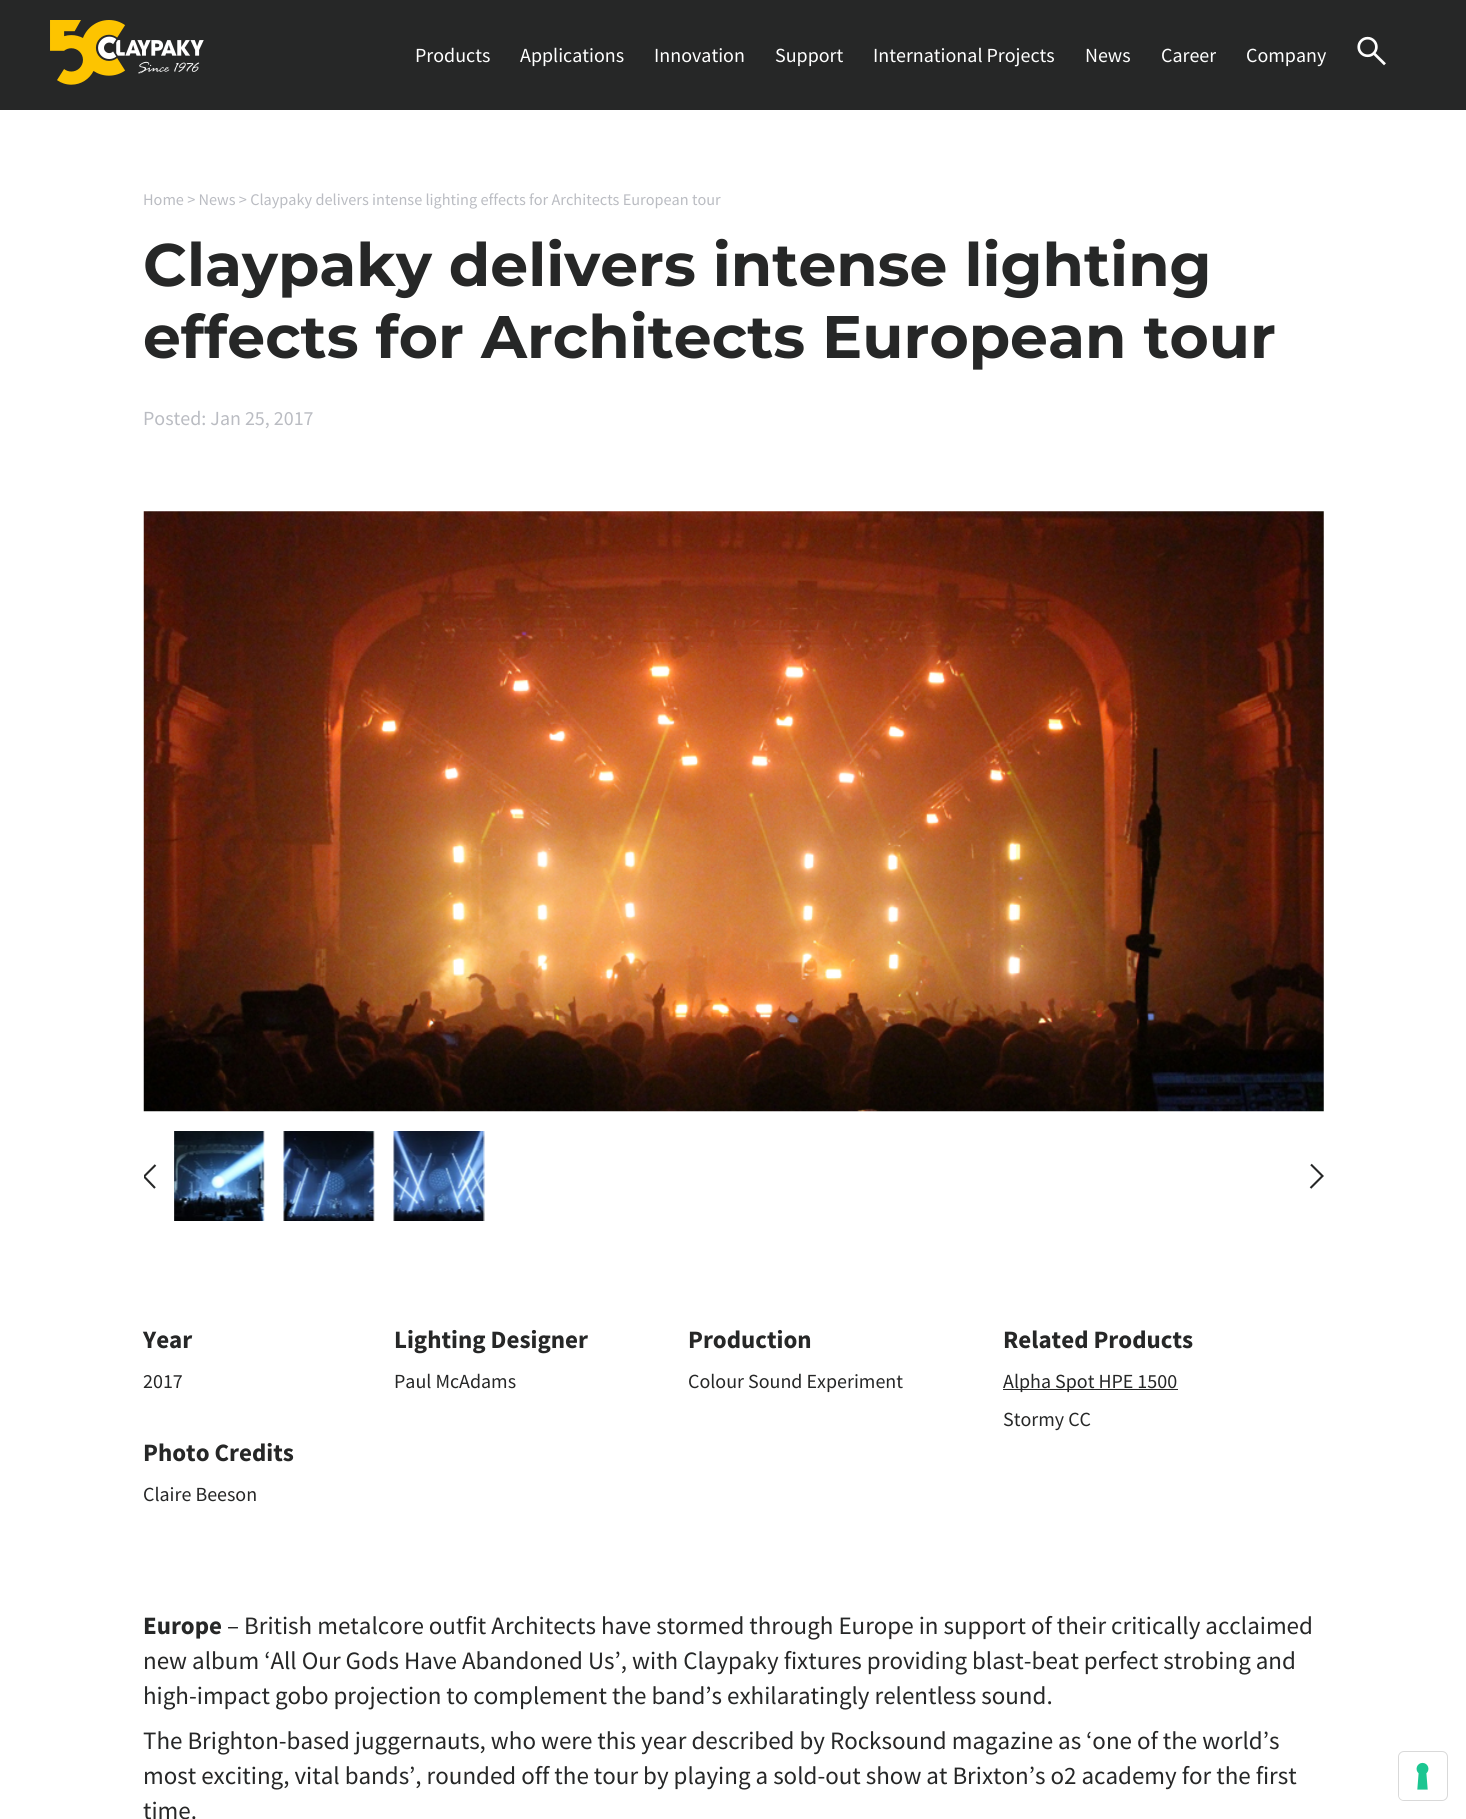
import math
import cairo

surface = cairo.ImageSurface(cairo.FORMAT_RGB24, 1466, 1819)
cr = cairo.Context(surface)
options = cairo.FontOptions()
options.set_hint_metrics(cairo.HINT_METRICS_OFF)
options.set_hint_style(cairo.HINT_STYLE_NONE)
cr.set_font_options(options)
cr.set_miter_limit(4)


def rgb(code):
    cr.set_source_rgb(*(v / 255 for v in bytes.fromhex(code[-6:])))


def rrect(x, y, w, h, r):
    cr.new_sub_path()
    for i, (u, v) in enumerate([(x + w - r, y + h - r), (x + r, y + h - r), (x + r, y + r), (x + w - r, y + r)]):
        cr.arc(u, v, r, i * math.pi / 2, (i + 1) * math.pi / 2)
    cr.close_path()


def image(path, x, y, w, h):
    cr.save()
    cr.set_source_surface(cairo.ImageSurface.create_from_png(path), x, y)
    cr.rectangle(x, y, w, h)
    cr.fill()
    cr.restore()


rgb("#ffffff")
cr.paint()
rgb("#262727")
cr.rectangle(0, 0, 1466, 110)
cr.fill()
image("img/1.png", 50, 20, 154, 65)
image("img/2.png", 1357, 36, 29, 30)
image("img/3.png", 143, 511, 1181, 601)
image("img/4.png", 174, 1131, 91, 90)
image("img/5.png", 283, 1131, 92, 90)
image("img/6.png", 393, 1131, 92, 90)
cr.save()
cr.rectangle(144, 1164, 14, 25)
cr.clip()
cr.new_path()
cr.move_to(155.5, 1165)
cr.line_to(144, 1176.5)
cr.line_to(155, 1188)
cr.set_line_width(2.1)
cr.stroke()
cr.restore()
cr.new_path()
cr.move_to(1310.5, 1188)
cr.line_to(1322.5, 1176)
cr.line_to(1311, 1164.5)
cr.set_line_width(2.1)
cr.stroke()
cr.rectangle(1003, 1389, 175, 1)
cr.fill()
rrect(1398.5, 1751.5, 49, 49, 5.5)
rgb("#d9d9d9")
cr.set_line_width(1)
cr.stroke()
rgb("#ffffff")
rrect(1399, 1753, 47, 47, 5)
cr.fill()
image("img/7.png", 1416, 1762, 13, 28)
cr.select_font_face("Source Sans Pro")
cr.set_font_size(20)
for x, y, s in [
    (415, 62, "Products"),
    (520, 62, "Applications"),
    (654, 62, "Innovation"),
    (775, 62, "Support"),
    (873, 62, "International Projects"),
    (1085, 62, "News"),
    (1161, 62, "Career"),
    (1246, 62, "Company"),
]:
    cr.move_to(x, y)
    cr.show_text(s)
cr.set_font_size(16.25)
rgb("#babcc2")
cr.move_to(143, 205)
cr.show_text("Home > News > Claypaky delivers intense lighting effects for Architects European tour")
cr.select_font_face("Montserrat Thin")
cr.set_font_size(60)
rgb("#262727")
cr.move_to(143, 286)
cr.show_text("Claypaky delivers intense lighting")
cr.move_to(143, 358)
cr.show_text("effects for Architects European tour")
cr.select_font_face("Source Sans Pro")
cr.set_font_size(20)
rgb("#babcc2")
cr.move_to(143, 425)
cr.show_text("Posted: Jan 25, 2017")
cr.select_font_face("Source Sans Pro", cairo.FONT_SLANT_NORMAL, cairo.FONT_WEIGHT_BOLD)
cr.set_font_size(25)
rgb("#262727")
cr.move_to(143, 1348)
cr.show_text("Year")
cr.select_font_face("Source Sans Pro")
cr.set_font_size(20)
cr.move_to(143, 1388)
cr.show_text("2017")
cr.select_font_face("Source Sans Pro", cairo.FONT_SLANT_NORMAL, cairo.FONT_WEIGHT_BOLD)
cr.set_font_size(25)
cr.move_to(394, 1348)
cr.show_text("Lighting Designer")
cr.select_font_face("Source Sans Pro")
cr.set_font_size(20)
cr.move_to(394, 1388)
cr.show_text("Paul McAdams")
cr.select_font_face("Source Sans Pro", cairo.FONT_SLANT_NORMAL, cairo.FONT_WEIGHT_BOLD)
cr.set_font_size(25)
cr.move_to(688, 1348)
cr.show_text("Production")
cr.select_font_face("Source Sans Pro")
cr.set_font_size(20)
cr.move_to(688, 1388)
cr.show_text("Colour Sound Experiment")
cr.select_font_face("Source Sans Pro", cairo.FONT_SLANT_NORMAL, cairo.FONT_WEIGHT_BOLD)
cr.set_font_size(25)
cr.move_to(1003, 1348)
cr.show_text("Related Products")
cr.select_font_face("Source Sans Pro")
cr.set_font_size(20)
cr.move_to(1003, 1388)
cr.show_text("Alpha Spot HPE 1500")
cr.move_to(1003, 1426)
cr.show_text("Stormy CC")
cr.select_font_face("Source Sans Pro", cairo.FONT_SLANT_NORMAL, cairo.FONT_WEIGHT_BOLD)
cr.set_font_size(25)
cr.move_to(143, 1461)
cr.show_text("Photo Credits")
cr.select_font_face("Source Sans Pro")
cr.set_font_size(20)
cr.move_to(143, 1501)
cr.show_text("Claire Beeson")
cr.select_font_face("Source Sans Pro", cairo.FONT_SLANT_NORMAL, cairo.FONT_WEIGHT_BOLD)
cr.set_font_size(25)
cr.move_to(143, 1634)
cr.show_text("Europe")
cr.select_font_face("Source Sans Pro")
for x, y, s in [
    (227, 1634, "– British metalcore outfit Architects have stormed through Europe in support of their critically acclaimed"),
    (143, 1669, "new album ‘All Our Gods Have Abandoned Us’, with Claypaky fixtures providing blast-beat perfect strobing and"),
    (143, 1704, "high-impact gobo projection to complement the band’s exhilaratingly relentless sound."),
    (143, 1749, "The Brighton-based juggernauts, who were this year described by Rocksound magazine as ‘one of the world’s"),
    (143, 1784, "most exciting, vital bands’, rounded off the tour by playing a sold-out show at Brixton’s o2 academy for the first"),
    (143, 1819, "time."),
]:
    cr.move_to(x, y)
    cr.show_text(s)
surface.write_to_png("page.png")
